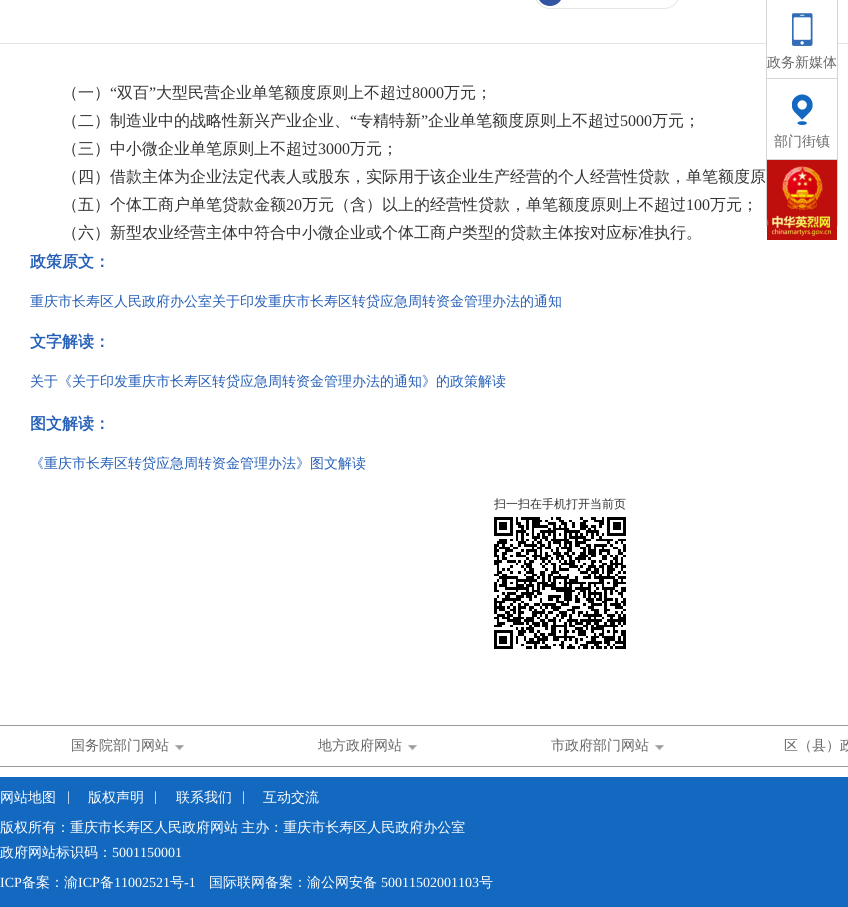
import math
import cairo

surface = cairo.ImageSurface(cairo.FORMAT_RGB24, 848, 907)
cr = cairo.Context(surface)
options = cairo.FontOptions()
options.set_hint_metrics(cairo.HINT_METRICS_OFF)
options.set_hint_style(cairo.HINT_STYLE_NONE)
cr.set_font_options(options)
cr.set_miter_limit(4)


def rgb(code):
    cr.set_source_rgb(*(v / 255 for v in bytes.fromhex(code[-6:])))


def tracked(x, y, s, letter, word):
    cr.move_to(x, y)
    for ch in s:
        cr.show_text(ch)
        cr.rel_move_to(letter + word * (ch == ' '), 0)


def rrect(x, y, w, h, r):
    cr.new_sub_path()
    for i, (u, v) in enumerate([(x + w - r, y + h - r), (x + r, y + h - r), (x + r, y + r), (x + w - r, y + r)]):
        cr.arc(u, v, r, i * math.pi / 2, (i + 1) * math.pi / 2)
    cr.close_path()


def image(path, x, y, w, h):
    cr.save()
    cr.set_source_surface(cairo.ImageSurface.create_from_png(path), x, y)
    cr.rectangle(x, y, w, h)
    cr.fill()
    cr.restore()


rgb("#ffffff")
cr.paint()
rrect(534.5, -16.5, 145, 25, 15.5)
rgb("#e5e5e5")
cr.set_line_width(1)
cr.stroke()
image("img/1.png", 539, 0, 22, 6)
cr.rectangle(0, 43, 848, 1)
cr.fill()
image("img/2.png", 494, 517, 132, 132)
for x, y, w, h, color in [
    (837, 0, 1, 226, "#d5d5d5"),
    (766, 0, 1, 226, "#d5d5d5"),
    (767, 43, 70, 1, "#ffffff"),
    (767, 78, 70, 1, "#d5d5d5"),
]:
    rgb(color)
    cr.rectangle(x, y, w, h)
    cr.fill()
image("img/3.png", 792, 13, 21, 33)
cr.rectangle(767, 159, 70, 1)
cr.fill()
image("img/4.png", 792, 94, 21, 31)
image("img/5.png", 767, 160, 70, 80)
rgb("#999999")
cr.rectangle(0, 725, 848, 1)
cr.fill()
cr.rectangle(0, 766, 848, 1)
cr.fill()
image("img/6.png", 175, 745, 9, 6)
image("img/6.png", 408, 745, 9, 6)
image("img/6.png", 655, 745, 9, 6)
rgb("#1369c0")
cr.rectangle(0, 777, 848, 130)
cr.fill()
cr.select_font_face("WenQuanYi Zen Hei Medium")
cr.set_font_size(16)
rgb("#333333")
cr.move_to(62, 98)
cr.show_text("（一）")
cr.select_font_face("Liberation Serif")
cr.move_to(110, 98)
cr.show_text("“")
cr.select_font_face("WenQuanYi Zen Hei Medium")
cr.move_to(117, 98)
cr.show_text("双百")
cr.select_font_face("Liberation Serif")
cr.move_to(149, 98)
cr.show_text("”")
cr.select_font_face("WenQuanYi Zen Hei Medium")
cr.move_to(156, 98)
cr.show_text("大型民营企业单笔额度原则上不超过")
cr.select_font_face("Liberation Serif")
cr.move_to(412, 98)
cr.show_text("8000")
cr.select_font_face("WenQuanYi Zen Hei Medium")
cr.move_to(444, 98)
cr.show_text("万元；")
cr.move_to(62, 126)
cr.show_text("（二）制造业中的战略性新兴产业企业、")
cr.select_font_face("Liberation Serif")
cr.move_to(350, 126)
cr.show_text("“")
cr.select_font_face("WenQuanYi Zen Hei Medium")
cr.move_to(357, 126)
cr.show_text("专精特新")
cr.select_font_face("Liberation Serif")
cr.move_to(421, 126)
cr.show_text("”")
cr.select_font_face("WenQuanYi Zen Hei Medium")
cr.move_to(428, 126)
cr.show_text("企业单笔额度原则上不超过")
cr.select_font_face("Liberation Serif")
cr.move_to(620, 126)
cr.show_text("5000")
cr.select_font_face("WenQuanYi Zen Hei Medium")
cr.move_to(652, 126)
cr.show_text("万元；")
cr.move_to(62, 154)
cr.show_text("（三）中小微企业单笔原则上不超过")
cr.select_font_face("Liberation Serif")
cr.move_to(318, 154)
cr.show_text("3000")
cr.select_font_face("WenQuanYi Zen Hei Medium")
for x, y, s in [
    (350, 154, "万元；"),
    (62, 182, "（四）借款主体为企业法定代表人或股东，实际用于该企业生产经营的个人经营性贷款，单笔额度原"),
    (62, 210, "（五）个体工商户单笔贷款金额"),
]:
    cr.move_to(x, y)
    cr.show_text(s)
cr.select_font_face("Liberation Serif")
cr.move_to(286, 210)
cr.show_text("20")
cr.select_font_face("WenQuanYi Zen Hei Medium")
cr.move_to(302, 210)
cr.show_text("万元（含）以上的经营性贷款，单笔额度原则上不超过")
cr.select_font_face("Liberation Serif")
cr.move_to(686, 210)
cr.show_text("100")
cr.select_font_face("WenQuanYi Zen Hei Medium")
cr.move_to(710, 210)
cr.show_text("万元；")
cr.move_to(62, 238)
cr.show_text("（六）新型农业经营主体中符合中小微企业或个体工商户类型的贷款主体按对应标准执行。")
cr.select_font_face("WenQuanYi Zen Hei", cairo.FONT_SLANT_NORMAL, cairo.FONT_WEIGHT_BOLD)
rgb("#2760b7")
cr.move_to(30, 267)
cr.show_text("政策原文：")
cr.select_font_face("WenQuanYi Zen Hei Medium")
cr.set_font_size(14)
cr.move_to(30, 306)
cr.show_text("重庆市长寿区人民政府办公室关于印发重庆市长寿区转贷应急周转资金管理办法的通知")
cr.select_font_face("WenQuanYi Zen Hei", cairo.FONT_SLANT_NORMAL, cairo.FONT_WEIGHT_BOLD)
cr.set_font_size(16)
cr.move_to(30, 347)
cr.show_text("文字解读：")
cr.select_font_face("WenQuanYi Zen Hei Medium")
cr.set_font_size(14)
cr.move_to(30, 386)
cr.show_text("关于《关于印发重庆市长寿区转贷应急周转资金管理办法的通知》的政策解读")
cr.select_font_face("WenQuanYi Zen Hei", cairo.FONT_SLANT_NORMAL, cairo.FONT_WEIGHT_BOLD)
cr.set_font_size(16)
cr.move_to(30, 429)
cr.show_text("图文解读：")
cr.select_font_face("WenQuanYi Zen Hei Medium")
cr.set_font_size(14)
cr.move_to(30, 468)
cr.show_text("《重庆市长寿区转贷应急周转资金管理办法》图文解读")
cr.set_font_size(12)
rgb("#333333")
cr.move_to(494, 508)
cr.show_text("扫一扫在手机打开当前页")
cr.set_font_size(14)
rgb("#666666")
for x, y, s in [
    (767, 67, "政务新媒体"),
    (774, 146, "部门街镇"),
    (71, 750, "国务院部门网站"),
    (318, 750, "地方政府网站"),
    (551, 750, "市政府部门网站"),
    (784, 750, "区（县）政"),
]:
    cr.move_to(x, y)
    cr.show_text(s)
rgb("#ffffff")
cr.move_to(0, 802)
cr.show_text("网站地图")
cr.select_font_face("Liberation Serif")
cr.move_to(67, 801)
cr.show_text("|")
cr.select_font_face("WenQuanYi Zen Hei Medium")
cr.move_to(88, 802)
cr.show_text("版权声明")
cr.select_font_face("Liberation Serif")
cr.move_to(154, 801)
cr.show_text("|")
cr.select_font_face("WenQuanYi Zen Hei Medium")
cr.move_to(176, 802)
cr.show_text("联系我们")
cr.select_font_face("Liberation Serif")
cr.move_to(242, 801)
cr.show_text("|")
cr.select_font_face("WenQuanYi Zen Hei Medium")
cr.move_to(263, 802)
cr.show_text("互动交流")
tracked(0, 832, "版权所有：重庆市长寿区人民政府网站 主办：重庆市长寿区人民政府办公室", 0, -1)
cr.move_to(0, 857)
cr.show_text("政府网站标识码：")
cr.select_font_face("Liberation Serif")
cr.move_to(112, 857)
cr.show_text("5001150001")
cr.move_to(0, 887)
cr.show_text("ICP")
cr.select_font_face("WenQuanYi Zen Hei Medium")
cr.move_to(22, 887)
cr.show_text("备案：渝")
cr.select_font_face("Liberation Serif")
cr.move_to(78, 887)
cr.show_text("ICP")
cr.select_font_face("WenQuanYi Zen Hei Medium")
cr.move_to(100, 887)
cr.show_text("备")
cr.select_font_face("Liberation Serif")
cr.move_to(114, 887)
cr.show_text("11002521")
cr.select_font_face("WenQuanYi Zen Hei Medium")
cr.move_to(170, 887)
cr.show_text("号")
cr.select_font_face("Liberation Serif")
cr.move_to(184, 887)
cr.show_text("-1")
cr.select_font_face("WenQuanYi Zen Hei Medium")
cr.move_to(209, 887)
cr.show_text("国际联网备案：渝公网安备")
cr.select_font_face("Liberation Serif")
cr.move_to(381, 887)
cr.show_text("50011502001103")
cr.select_font_face("WenQuanYi Zen Hei Medium")
cr.move_to(479, 887)
cr.show_text("号")
surface.write_to_png("page.png")
